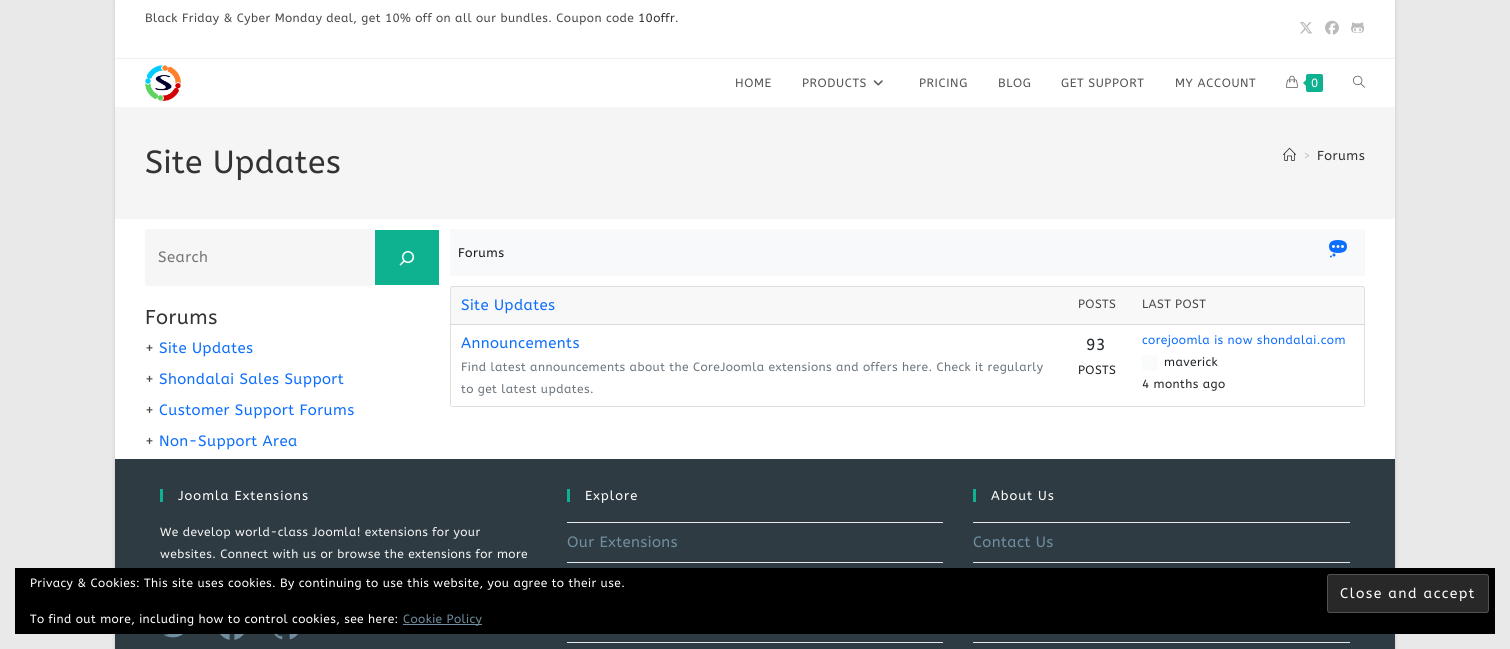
import math
import cairo

surface = cairo.ImageSurface(cairo.FORMAT_RGB24, 1510, 649)
cr = cairo.Context(surface)
options = cairo.FontOptions()
options.set_hint_metrics(cairo.HINT_METRICS_OFF)
options.set_hint_style(cairo.HINT_STYLE_NONE)
cr.set_font_options(options)
cr.set_miter_limit(4)


def rgb(code):
    cr.set_source_rgb(*(v / 255 for v in bytes.fromhex(code[-6:])))


def tracked(x, y, s, letter, word):
    cr.move_to(x, y)
    for ch in s:
        cr.show_text(ch)
        cr.rel_move_to(letter + word * (ch == ' '), 0)


def rrect(x, y, w, h, r):
    cr.new_sub_path()
    for i, (u, v) in enumerate([(x + w - r, y + h - r), (x + r, y + h - r), (x + r, y + r), (x + w - r, y + r)]):
        cr.arc(u, v, r, i * math.pi / 2, (i + 1) * math.pi / 2)
    cr.close_path()


def soft_shadow(x, y, w, h, r, blur, alpha):
    cr.push_group_with_content(cairo.CONTENT_ALPHA)
    cr.set_operator(cairo.OPERATOR_SOURCE)
    for i in range(15, -16, -2):
        e = blur * i / 6
        if min(w, h) + 2 * e > 0:
            cr.set_source_rgba(0, 0, 0, alpha * math.erfc((i - 1) / 8.5) / 2)
            rrect(x - e, y - e, w + 2 * e, h + 2 * e, max(0, min(r + e + blur * .6, min(w, h) / 2 + e)))
            cr.fill()
    cr.mask(cr.pop_group())


def image(path, x, y, w, h):
    cr.save()
    cr.set_source_surface(cairo.ImageSurface.create_from_png(path), x, y)
    cr.rectangle(x, y, w, h)
    cr.fill()
    cr.restore()


rgb("#e9e9e9")
cr.paint()
rgb("#000000")
soft_shadow(115, 1, 1280, 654, 0, 2, 0.15)
rgb("#ffffff")
cr.rectangle(115, 0, 1280, 459)
cr.fill()
rgb("#f1f1f1")
cr.rectangle(115, 58, 1280, 1)
cr.fill()
image("img/1.png", 1300, 22, 13, 12)
image("img/2.png", 1325, 20, 14, 15)
image("img/3.png", 1351, 22, 14, 11)
image("img/4.png", 145, 65, 36, 36)
image("img/5.png", 873, 80, 10, 6)
image("img/6.png", 1286, 75, 12, 13)
rgb("#0eb290")
rrect(1306, 74, 17, 18, 2)
cr.fill()
cr.new_path()
cr.move_to(1308, 78)
cr.line_to(1308, 88)
cr.line_to(1303, 83)
cr.close_path()
cr.fill()
image("img/7.png", 1353, 75, 12, 13)
rgb("#f5f5f5")
cr.rectangle(115, 107, 1280, 112)
cr.fill()
image("img/8.png", 1283, 147, 13, 14)
rgb("#f6f6f6")
rrect(145, 229, 229, 57, 3)
cr.fill()
rgb("#0eb290")
cr.rectangle(375, 230, 64, 55)
cr.fill()
image("img/9.png", 399, 251, 16, 15)
rgb("#f8f9fa")
cr.rectangle(450, 229, 915, 47)
cr.fill()
image("img/10.png", 1329, 240, 18, 18)
rrect(450.5, 286.5, 914, 120, 2)
rgb("#dfdfdf")
cr.set_line_width(1)
cr.stroke()
cr.set_source_rgba(0, 0, 0, 0.03)
cr.rectangle(451, 287, 913, 37)
cr.fill()
rgb("#d8d8d8")
cr.rectangle(451, 324, 913, 1)
cr.fill()
rgb("#ffffff")
cr.new_path()
cr.move_to(451, 325)
cr.line_to(1364, 325)
cr.line_to(1364, 404.5)
cr.curve_to(1364, 405.5, 1363.5, 406, 1362.5, 406)
cr.line_to(452.5, 406)
cr.curve_to(451.5, 406, 451, 405.5, 451, 404.5)
cr.close_path()
cr.fill()
rgb("#fafbfb")
rrect(1142, 355, 16, 16, 2.5)
cr.fill()
for x, y, w, h, color in [
    (115, 459, 1280, 190, "#2e3b42"),
    (973, 489, 3, 13, "#0eb290"),
    (973, 522, 377, 1, "#e9e9e9"),
    (973, 562, 377, 1, "#e9e9e9"),
    (973, 642, 377, 1, "#e9e9e9"),
    (15, 568, 1480, 66, "#000000"),
]:
    rgb(color)
    cr.rectangle(x, y, w, h)
    cr.fill()
rgb("#282828")
rrect(1327.5, 574.5, 161, 38, 2.5)
cr.fill_preserve()
rgb("#535353")
cr.stroke()
rgb("#708e9f")
cr.rectangle(403, 624, 79, 1)
cr.fill()
rgb("#0eb290")
cr.rectangle(160, 489, 3, 13)
cr.fill()
image("img/11.png", 163, 634, 20, 4)
image("img/12.png", 220, 634, 24, 6)
image("img/13.png", 274, 634, 24, 6)
for x, y, w, h, color in [
    (567, 489, 3, 13, "#0eb290"),
    (567, 522, 376, 1, "#e9e9e9"),
    (567, 562, 376, 1, "#e9e9e9"),
    (567, 642, 376, 1, "#e9e9e9"),
]:
    rgb(color)
    cr.rectangle(x, y, w, h)
    cr.fill()
cr.select_font_face("ABeeZee")
cr.set_font_size(12)
rgb("#4a4a4a")
tracked(145, 22, "Black Friday & Cyber Monday deal, get 10% off on all our bundles. Coupon code", 0.4, 0)
rgb("#333333")
tracked(638, 22, "10offr", 0.4, 0)
rgb("#4a4a4a")
tracked(675, 22, ".", 0.4, 0)
rgb("#555555")
for x, y, s in [
    (735, 87, "HOME"),
    (802, 87, "PRODUCTS"),
    (919, 87, "PRICING"),
    (998, 87, "BLOG"),
    (1061, 87, "GET SUPPORT"),
    (1175, 87, "MY ACCOUNT"),
]:
    tracked(x, y, s, 0.6, 0)
rgb("#ffffff")
cr.move_to(1311, 87)
cr.show_text("0")
cr.set_font_size(32)
rgb("#333333")
tracked(145, 173, "Site Updates", 0.4, 0)
cr.set_font_size(13)
rgb("#c6c6c6")
tracked(1303, 160, ">", 0.4, 0)
rgb("#333333")
tracked(1317, 160, "Forums", 0.4, 0)
cr.set_font_size(15)
rgb("#757575")
tracked(158, 262, "Search", 0.4, 0)
cr.set_font_size(20)
rgb("#333333")
tracked(145, 324, "Forums", 0.4, 0)
cr.set_font_size(15)
rgb("#4a4a4a")
tracked(145, 353, "+", 0.4, 0)
rgb("#0d6efd")
tracked(159, 353, "Site Updates", 0.4, 0)
rgb("#4a4a4a")
tracked(145, 384, "+", 0.4, 0)
rgb("#0d6efd")
tracked(159, 384, "Shondalai Sales Support", 0.4, 0)
rgb("#4a4a4a")
tracked(145, 415, "+", 0.4, 0)
rgb("#0d6efd")
tracked(159, 415, "Customer Support Forums", 0.4, 0)
rgb("#4a4a4a")
tracked(145, 446, "+", 0.4, 0)
rgb("#0d6efd")
tracked(159, 446, "Non-Support Area", 0.4, 0)
cr.set_font_size(12.5)
rgb("#191919")
tracked(458, 257, "Forums", 0.4, 0)
cr.set_font_size(15)
rgb("#0d6efd")
tracked(461, 310, "Site Updates", 0.4, 0)
cr.set_font_size(12)
rgb("#4a4a4a")
tracked(1078, 308, "POSTS", 0.4, 0)
tracked(1142, 308, "LAST POST", 0.4, 0)
cr.set_font_size(15)
rgb("#0d6efd")
tracked(461, 348, "Announcements", 0.4, 0)
cr.set_font_size(12)
rgb("#6c757d")
tracked(461, 371, "Find latest announcements about the CoreJoomla extensions and offers here. Check it regularly", 0.4, 0)
tracked(461, 393, "to get latest updates.", 0.4, 0)
cr.set_font_size(16)
rgb("#212529")
tracked(1086, 350, "93", 0.4, 0)
cr.set_font_size(12)
tracked(1078, 374, "POSTS", 0.4, 0)
rgb("#0d6efd")
tracked(1142, 344, "corejoomla is now shondalai.com", 0.4, 0)
rgb("#212529")
tracked(1164, 366, "maverick", 0.4, 0)
tracked(1142, 388, "4 months ago", 0.4, 0)
cr.set_font_size(13)
rgb("#ffffff")
tracked(991, 500, "About Us", 1, 0)
cr.set_font_size(15)
rgb("#708e9f")
tracked(973, 547, "Contact Us", 0.4, 0)
cr.set_font_size(12)
rgb("#ffffff")
tracked(30, 587, "Privacy & Cookies: This site uses cookies. By continuing to use this website, you agree to their use.", 0.4, 0)
cr.set_font_size(14)
tracked(1340, 598, "Close and accept", 1.4, 0)
cr.set_font_size(12)
tracked(30, 623, "To find out more, including how to control cookies, see here:", 0.4, 0)
rgb("#708e9f")
tracked(403, 623, "Cookie Policy", 0.4, 0)
cr.set_font_size(13)
rgb("#ffffff")
tracked(178, 500, "Joomla Extensions", 1, 0)
cr.set_font_size(12)
rgb("#f5f5f5")
tracked(160, 536, "We develop world-class Joomla! extensions for your", 0.4, 0)
tracked(160, 558, "websites. Connect with us or browse the extensions for more", 0.4, 0)
cr.set_font_size(13)
rgb("#ffffff")
tracked(585, 500, "Explore", 1, 0)
cr.set_font_size(15)
rgb("#708e9f")
tracked(567, 547, "Our Extensions", 0.4, 0)
surface.write_to_png("page.png")
